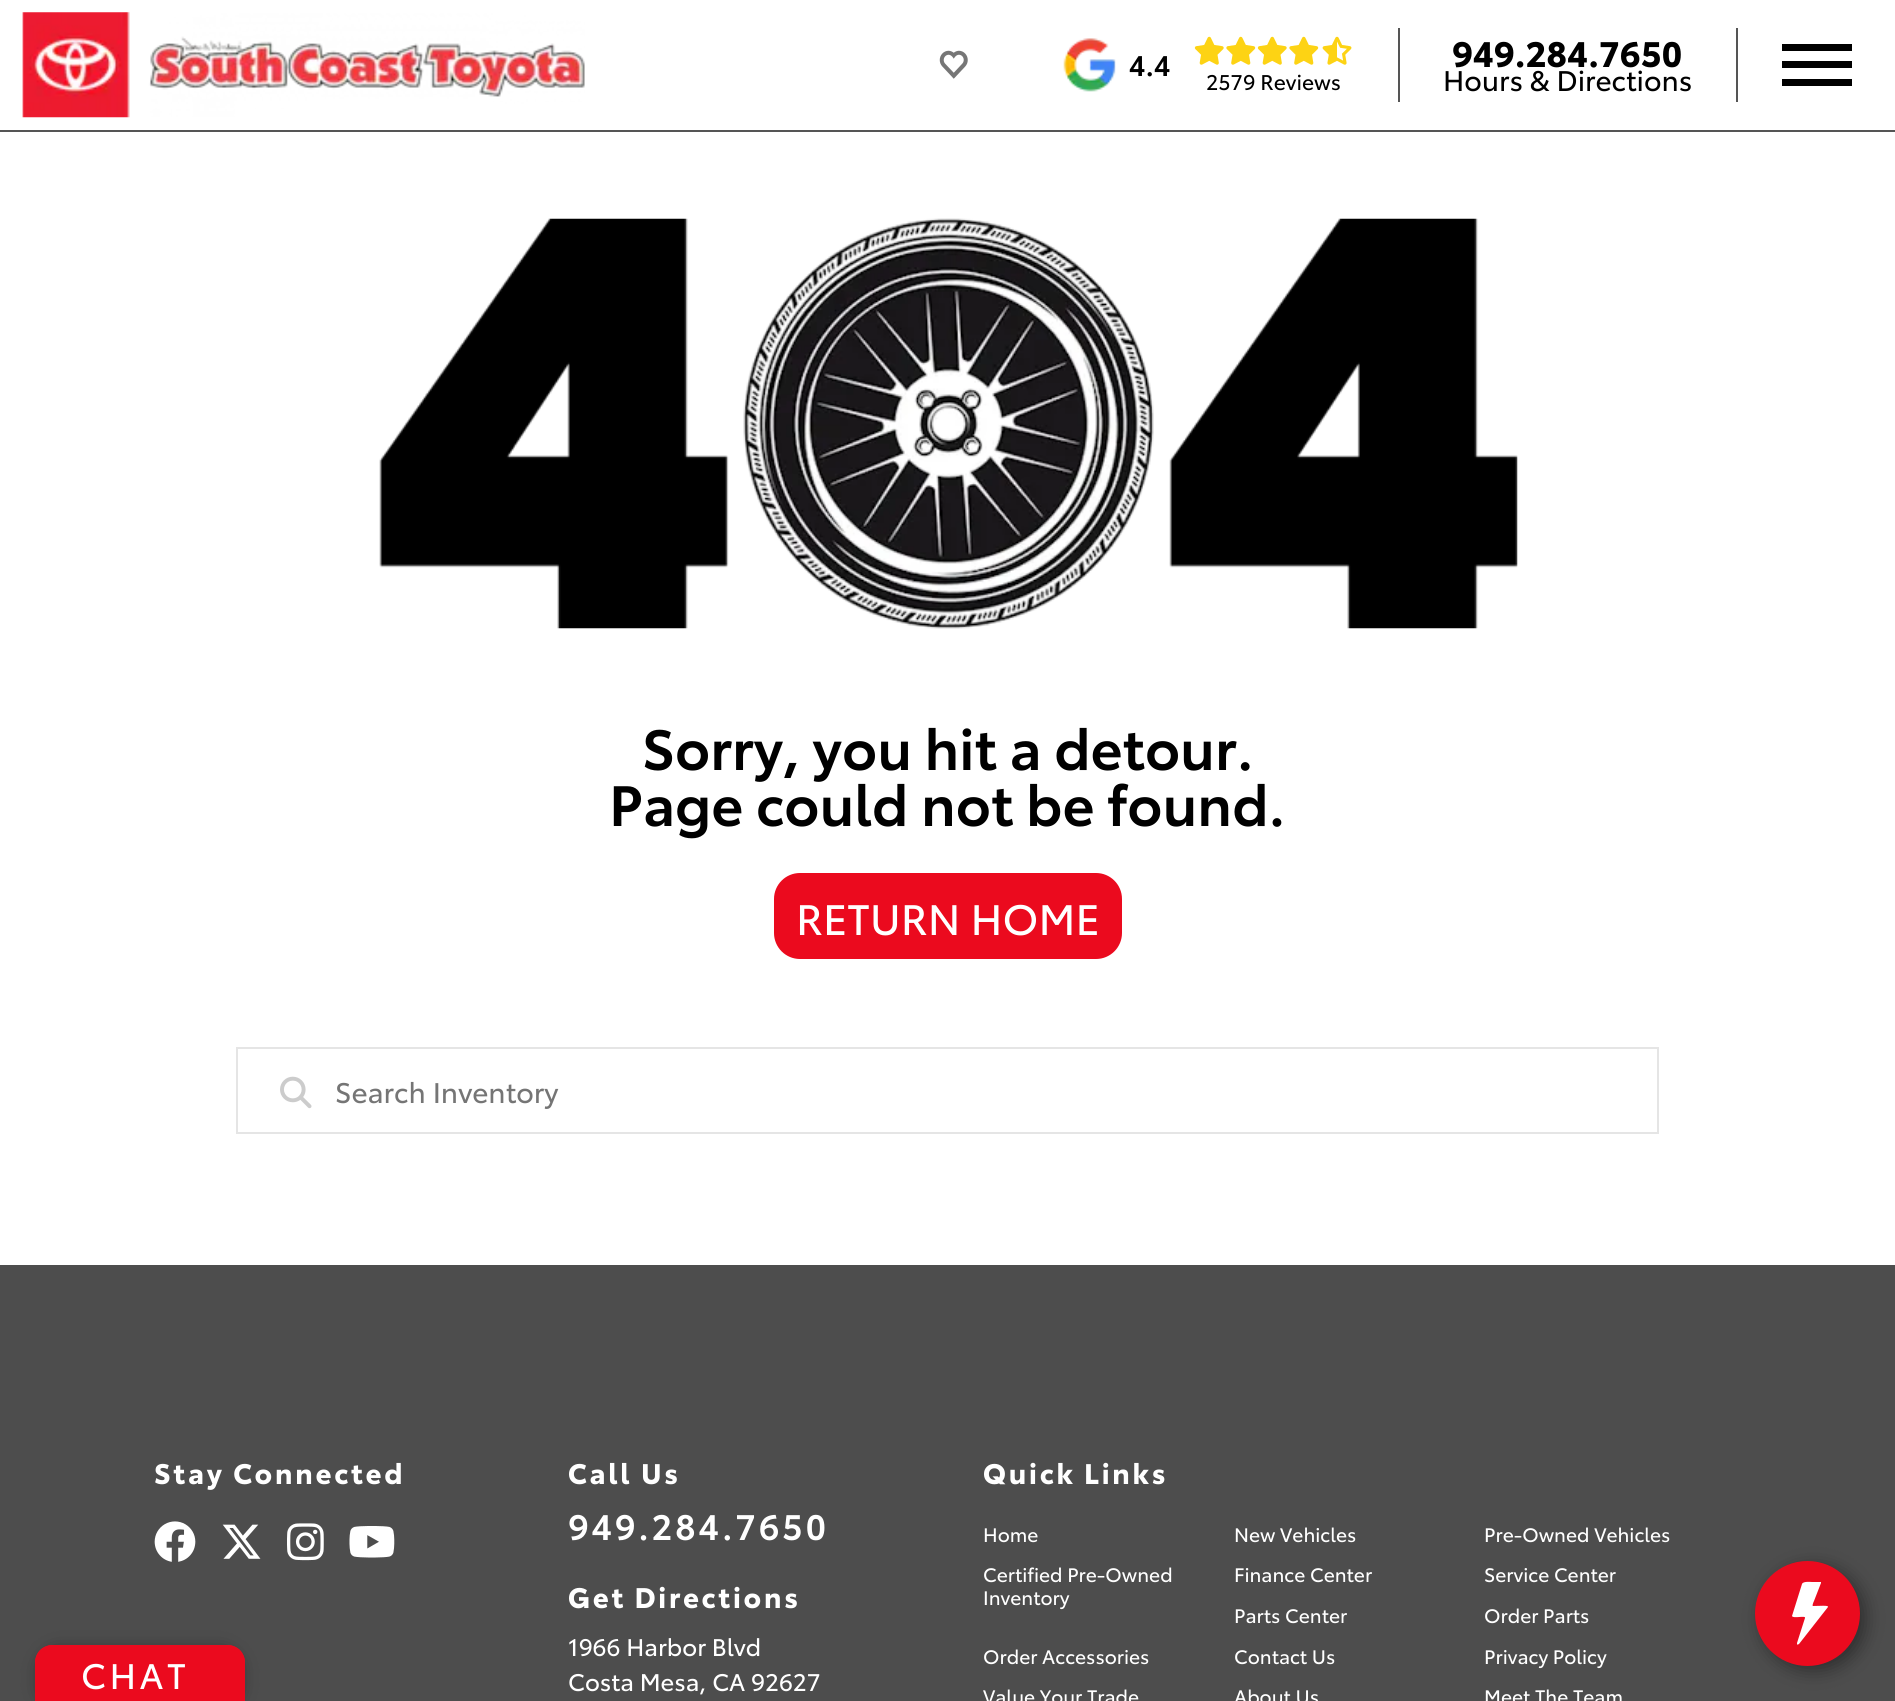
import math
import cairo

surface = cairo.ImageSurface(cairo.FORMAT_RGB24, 1895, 1701)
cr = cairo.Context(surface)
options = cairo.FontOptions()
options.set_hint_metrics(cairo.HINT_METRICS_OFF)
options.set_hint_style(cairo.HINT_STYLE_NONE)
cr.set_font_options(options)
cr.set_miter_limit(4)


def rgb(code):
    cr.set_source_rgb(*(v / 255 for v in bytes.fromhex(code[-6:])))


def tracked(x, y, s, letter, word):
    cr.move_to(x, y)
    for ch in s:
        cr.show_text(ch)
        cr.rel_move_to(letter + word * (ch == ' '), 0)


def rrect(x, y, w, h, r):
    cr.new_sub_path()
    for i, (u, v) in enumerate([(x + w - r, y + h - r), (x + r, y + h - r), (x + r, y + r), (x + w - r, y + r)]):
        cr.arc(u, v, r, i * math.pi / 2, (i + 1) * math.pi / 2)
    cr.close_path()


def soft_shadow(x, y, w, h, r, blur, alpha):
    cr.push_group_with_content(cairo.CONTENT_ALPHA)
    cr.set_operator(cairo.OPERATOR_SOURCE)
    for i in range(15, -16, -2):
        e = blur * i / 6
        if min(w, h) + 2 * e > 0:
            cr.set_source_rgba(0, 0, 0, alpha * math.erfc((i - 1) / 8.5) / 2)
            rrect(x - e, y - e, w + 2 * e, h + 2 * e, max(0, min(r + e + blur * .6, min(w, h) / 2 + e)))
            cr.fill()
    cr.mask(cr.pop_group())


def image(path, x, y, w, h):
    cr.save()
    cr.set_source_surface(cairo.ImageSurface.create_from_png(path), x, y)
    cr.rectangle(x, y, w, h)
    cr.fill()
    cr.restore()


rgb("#ffffff")
cr.paint()
rgb("#555555")
cr.rectangle(0, 130, 1895, 2)
cr.fill()
image("img/1.png", 22, 12, 563, 106)
image("img/2.png", 939, 50, 29, 29)
image("img/3.png", 1063, 38, 53, 54)
image("img/4.png", 1194, 36, 30, 29)
image("img/5.png", 1226, 36, 30, 29)
image("img/4.png", 1257, 36, 30, 29)
image("img/5.png", 1289, 36, 30, 29)
image("img/6.png", 1322, 36, 30, 29)
for x, y, w, h, color in [
    (1736, 28, 2, 74, "#555555"),
    (1398, 28, 2, 74, "#555555"),
    (1782, 44, 70, 7, "#000000"),
    (1782, 61, 70, 7, "#000000"),
    (1782, 79, 70, 7, "#000000"),
]:
    rgb(color)
    cr.rectangle(x, y, w, h)
    cr.fill()
image("img/7.png", 379, 218, 1139, 411)
rgb("#eb0a1e")
rrect(774, 873, 348, 86, 26)
cr.fill()
cr.rectangle(237, 1048, 1421, 85)
rgb("#e5e5e5")
cr.stroke()
image("img/8.png", 280, 1076, 32, 33)
rgb("#4d4d4d")
cr.rectangle(0, 1265, 1895, 436)
cr.fill()
rgb("#000000")
soft_shadow(40, 1650, 200, 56, 18, 9, 0.4)
rgb("#eb0a1e")
cr.new_path()
cr.move_to(53, 1645)
cr.line_to(227, 1645)
cr.curve_to(237, 1645, 245, 1653, 245, 1663)
cr.line_to(245, 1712)
cr.line_to(35, 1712)
cr.line_to(35, 1663)
cr.curve_to(35, 1653, 43, 1645, 53, 1645)
cr.close_path()
cr.fill()
cr.new_path()
cr.move_to(52, 1645)
cr.curve_to(48, 1645, 43, 1647, 40, 1650)
cr.line_to(44, 1654)
cr.curve_to(46, 1652, 49, 1650, 52, 1650)
cr.line_to(228, 1650)
cr.curve_to(231, 1650, 234, 1652, 236, 1654)
cr.line_to(240, 1650)
cr.curve_to(237, 1647, 232, 1645, 228, 1645)
cr.close_path()
cr.fill()
cr.new_path()
cr.move_to(245, 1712)
cr.line_to(245, 1662)
cr.curve_to(245, 1658, 243, 1653, 240, 1650)
cr.line_to(236, 1654)
cr.curve_to(238, 1656, 240, 1659, 240, 1662)
cr.line_to(240, 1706)
cr.close_path()
cr.fill()
cr.new_path()
cr.move_to(35, 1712)
cr.line_to(40, 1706)
cr.line_to(40, 1662)
cr.curve_to(40, 1659, 42, 1656, 44, 1654)
cr.line_to(40, 1650)
cr.curve_to(37, 1653, 35, 1658, 35, 1662)
cr.close_path()
cr.fill()
rgb("#000000")
soft_shadow(1761, 1566, 105, 105, 52.5, 9, 0.4)
rgb("#eb0a1e")
cr.arc(1807.5, 1613.5, 52.5, 0, 2 * math.pi)
cr.fill()
rgb("#ffffff")
cr.new_path()
cr.move_to(1802, 1584)
cr.curve_to(1803, 1581, 1811, 1582, 1812, 1582)
cr.line_to(1821, 1582)
cr.line_to(1821, 1583)
cr.line_to(1814, 1601)
cr.curve_to(1813, 1603, 1812, 1606, 1813, 1606)
cr.curve_to(1819, 1606, 1829, 1605, 1828, 1607)
cr.line_to(1799, 1644)
cr.curve_to(1797, 1645, 1797, 1645, 1797, 1643)
cr.line_to(1805, 1618)
cr.curve_to(1806, 1615, 1793, 1619, 1792, 1616)
cr.close_path()
cr.fill()
image("img/9.png", 154, 1521, 42, 41)
image("img/10.png", 222, 1524, 39, 35)
image("img/11.png", 287, 1523, 37, 38)
image("img/12.png", 349, 1526, 46, 32)
cr.select_font_face("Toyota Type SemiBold")
cr.set_font_size(28)
rgb("#000000")
cr.move_to(1129, 76)
cr.show_text("4.4")
cr.select_font_face("Toyota Type")
cr.set_font_size(21)
cr.move_to(1206, 90)
cr.show_text("2579 Reviews")
cr.select_font_face("Toyota Type", cairo.FONT_SLANT_NORMAL, cairo.FONT_WEIGHT_BOLD)
cr.set_font_size(35)
cr.move_to(1452, 67)
cr.show_text("949.284.7650")
cr.select_font_face("Toyota Type")
cr.set_font_size(28)
cr.move_to(1443, 91)
cr.show_text("Hours & Directions")
cr.select_font_face("Toyota Type SemiBold")
cr.set_font_size(56)
cr.move_to(642, 770)
cr.show_text("Sorry, you hit a detour.")
cr.move_to(609, 826)
cr.show_text("Page could not be found.")
cr.select_font_face("Toyota Type")
cr.set_font_size(42)
rgb("#ffffff")
cr.move_to(796, 935)
cr.show_text("RETURN HOME")
cr.set_font_size(28)
rgb("#757575")
cr.move_to(335, 1103)
cr.show_text("Search Inventory")
cr.set_font_size(35)
rgb("#ffffff")
tracked(81, 1689, "CHAT", 3.5, 0)
cr.select_font_face("Toyota Type", cairo.FONT_SLANT_NORMAL, cairo.FONT_WEIGHT_BOLD)
cr.set_font_size(28)
tracked(154, 1484, "Stay Connected", 2.75, 0)
tracked(568, 1484, "Call Us", 2.75, 0)
cr.select_font_face("Toyota Type SemiBold")
cr.set_font_size(35)
tracked(568, 1540, "949.284.7650", 2.75, 0)
cr.select_font_face("Toyota Type", cairo.FONT_SLANT_NORMAL, cairo.FONT_WEIGHT_BOLD)
cr.set_font_size(28)
tracked(568, 1608, "Get Directions", 2.75, 0)
cr.select_font_face("Toyota Type")
cr.set_font_size(23.75)
cr.move_to(568, 1656)
cr.show_text("1966 Harbor Blvd")
cr.move_to(568, 1691)
cr.show_text("Costa Mesa, CA 92627")
cr.select_font_face("Toyota Type", cairo.FONT_SLANT_NORMAL, cairo.FONT_WEIGHT_BOLD)
cr.set_font_size(28)
tracked(983, 1484, "Quick Links", 2.75, 0)
cr.select_font_face("Toyota Type")
cr.set_font_size(19.25)
for x, y, s in [
    (983, 1542, "Home"),
    (1234, 1542, "New Vehicles"),
    (1484, 1542, "Pre-Owned Vehicles"),
    (983, 1582, "Certified Pre-Owned"),
    (983, 1605, "Inventory"),
    (1234, 1582, "Finance Center"),
    (1484, 1582, "Service Center"),
    (1234, 1623, "Parts Center"),
    (1484, 1623, "Order Parts"),
    (983, 1664, "Order Accessories"),
    (1234, 1664, "Contact Us"),
    (1484, 1664, "Privacy Policy"),
    (983, 1704, "Value Your Trade"),
    (1234, 1704, "About Us"),
    (1484, 1704, "Meet The Team"),
]:
    cr.move_to(x, y)
    cr.show_text(s)
surface.write_to_png("page.png")
